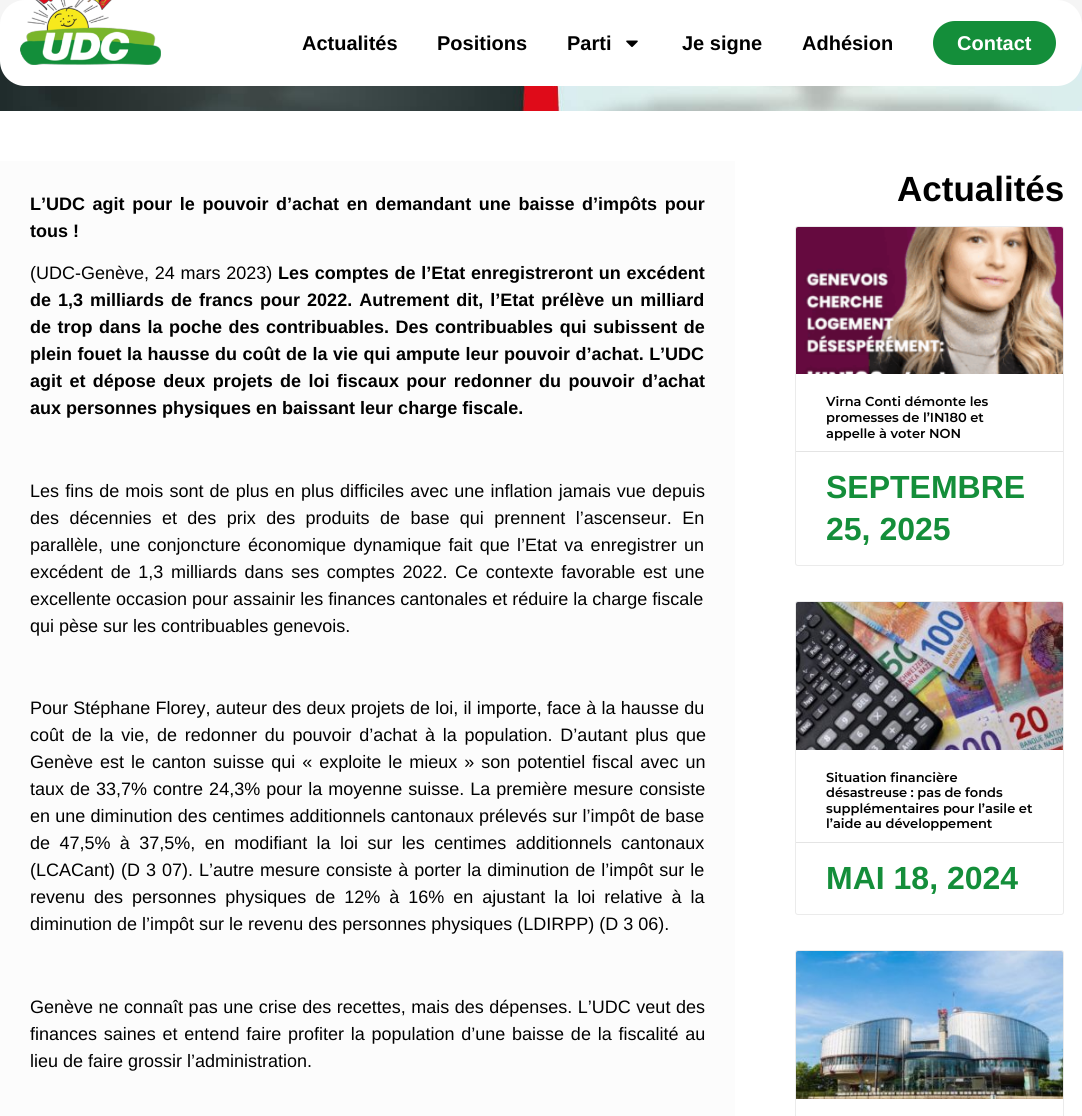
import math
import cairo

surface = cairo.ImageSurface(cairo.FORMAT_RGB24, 1082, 1116)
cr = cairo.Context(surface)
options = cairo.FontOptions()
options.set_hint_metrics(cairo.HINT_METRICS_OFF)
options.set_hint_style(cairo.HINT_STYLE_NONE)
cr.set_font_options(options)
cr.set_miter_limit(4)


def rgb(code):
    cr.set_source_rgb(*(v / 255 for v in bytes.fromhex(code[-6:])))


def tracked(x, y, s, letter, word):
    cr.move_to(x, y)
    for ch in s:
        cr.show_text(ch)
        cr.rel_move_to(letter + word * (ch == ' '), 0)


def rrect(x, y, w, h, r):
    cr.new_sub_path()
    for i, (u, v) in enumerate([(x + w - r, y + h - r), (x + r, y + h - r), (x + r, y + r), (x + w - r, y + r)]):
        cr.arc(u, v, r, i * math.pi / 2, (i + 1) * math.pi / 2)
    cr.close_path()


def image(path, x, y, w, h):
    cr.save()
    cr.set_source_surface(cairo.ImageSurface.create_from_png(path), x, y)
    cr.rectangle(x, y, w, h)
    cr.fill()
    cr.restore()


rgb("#ffffff")
cr.paint()
rgb("#f5f5f5")
cr.rectangle(0, 0, 1082, 25)
cr.fill()
image("img/3.png", 0, 61, 1082, 50)
rgb("#ffffff")
rrect(0, 0, 1082, 86, 25)
cr.fill()
image("img/1.png", 20, 0, 141, 65)
image("img/2.png", 626, 40, 12, 7)
rgb("#148e3a")
rrect(933, 21, 123, 44, 22)
cr.fill()
rgb("#fcfcfc")
cr.rectangle(0, 161, 735, 955)
cr.fill()
rrect(795.5, 226.5, 268, 339, 2.5)
rgb("#ebebeb")
cr.set_line_width(1)
cr.stroke()
image("img/4.png", 796, 227, 267, 147)
rgb("#e4e4e4")
cr.rectangle(796, 451, 267, 1)
cr.fill()
rrect(795.5, 601.5, 268, 313, 2.5)
rgb("#ebebeb")
cr.stroke()
image("img/5.png", 796, 602, 267, 148)
rgb("#e4e4e4")
cr.rectangle(796, 842, 267, 1)
cr.fill()
rrect(795.5, 950.5, 268, 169, 2.5)
rgb("#ebebeb")
cr.stroke()
image("img/6.png", 796, 951, 267, 148)
cr.select_font_face("Liberation Sans", cairo.FONT_SLANT_NORMAL, cairo.FONT_WEIGHT_BOLD)
cr.set_font_size(20)
rgb("#000000")
for x, y, s in [
    (302, 50, "Actualités"),
    (437, 50, "Positions"),
    (567, 50, "Parti"),
    (682, 50, "Je signe"),
    (802, 50, "Adhésion"),
]:
    cr.move_to(x, y)
    cr.show_text(s)
rgb("#ffffff")
cr.move_to(957, 50)
cr.show_text("Contact")
cr.set_font_size(18)
rgb("#000000")
tracked(30, 210, "L’UDC agit pour le pouvoir d’achat en demandant une baisse d’impôts pour", 0, 2.6)
cr.move_to(30, 237)
cr.show_text("tous !")
cr.select_font_face("Liberation Sans")
tracked(30, 279, "(UDC-Genève, 24 mars 2023)", 0, 0.75)
cr.select_font_face("Liberation Sans", cairo.FONT_SLANT_NORMAL, cairo.FONT_WEIGHT_BOLD)
tracked(278, 279, "Les comptes de l’Etat enregistreront un excédent", 0, 0.75)
tracked(30, 306, "de 1,3 milliards de francs pour 2022. Autrement dit, l’Etat prélève un milliard", 0, 2)
tracked(30, 333, "de trop dans la poche des contribuables. Des contribuables qui subissent de", 0, 1.5)
tracked(30, 360, "plein fouet la hausse du coût de la vie qui ampute leur pouvoir d’achat. L’UDC", 0, 0.5)
tracked(30, 387, "agit et dépose deux projets de loi fiscaux pour redonner du pouvoir d’achat", 0, 2.4)
cr.move_to(30, 414)
cr.show_text("aux personnes physiques en baissant leur charge fiscale.")
cr.select_font_face("Liberation Sans")
tracked(30, 497, "Les fins de mois sont de plus en plus difficiles avec une inflation jamais vue depuis", 0, 1.1)
tracked(30, 524, "des décennies et des prix des produits de base qui prennent l’ascenseur. En", 0, 5.4)
tracked(30, 551, "parallèle, une conjoncture économique dynamique fait que l’Etat va enregistrer un", 0, 2.25)
tracked(30, 578, "excédent de 1,3 milliards dans ses comptes 2022. Ce contexte favorable est une", 0, 2.6)
cr.move_to(30, 605)
cr.show_text("excellente occasion pour assainir les finances cantonales et réduire la charge fiscale")
cr.move_to(30, 632)
cr.show_text("qui pèse sur les contribuables genevois.")
tracked(30, 714, "Pour Stéphane Florey, auteur des deux projets de loi, il importe, face à la hausse du", 0, 0.25)
tracked(30, 741, "coût de la vie, de redonner du pouvoir d’achat à la population. D’autant plus que", 0, 2.75)
tracked(30, 768, "Genève est le canton suisse qui « exploite le mieux » son potentiel fiscal avec un", 0, 2)
tracked(30, 795, "taux de 33,7% contre 24,3% pour la moyenne suisse. La première mesure consiste", 0, 1)
tracked(30, 822, "en une diminution des centimes additionnels cantonaux prélevés sur l’impôt de base", 0, 0.25)
tracked(30, 849, "de 47,5% à 37,5%, en modifiant la loi sur les centimes additionnels cantonaux", 0, 4.4)
tracked(30, 876, "(LCACant) (D 3 07). L’autre mesure consiste à porter la diminution de l’impôt sur le", 0, 1)
tracked(30, 903, "revenu des personnes physiques de 12% à 16% en ajustant la loi relative à la", 0, 4)
cr.move_to(30, 930)
cr.show_text("diminution de l’impôt sur le revenu des personnes physiques (LDIRPP) (D 3 06).")
tracked(30, 1013, "Genève ne connaît pas une crise des recettes, mais des dépenses. L’UDC veut des", 0, 0.5)
tracked(30, 1040, "finances saines et entend faire profiter la population d’une baisse de la fiscalité au", 0, 1.75)
cr.move_to(30, 1067)
cr.show_text("lieu de faire grossir l’administration.")
cr.select_font_face("Liberation Sans", cairo.FONT_SLANT_NORMAL, cairo.FONT_WEIGHT_BOLD)
cr.set_font_size(35)
cr.move_to(897, 201)
cr.show_text("Actualités")
cr.select_font_face("Montserrat SemiBold")
cr.set_font_size(13)
for x, y, s in [
    (826, 406, "Virna Conti démonte les"),
    (826, 422, "promesses de l’IN180 et"),
    (826, 438, "appelle à voter NON"),
]:
    cr.move_to(x, y)
    cr.show_text(s)
cr.select_font_face("Liberation Sans", cairo.FONT_SLANT_NORMAL, cairo.FONT_WEIGHT_BOLD)
cr.set_font_size(32)
rgb("#148e3a")
cr.move_to(826, 498)
cr.show_text("SEPTEMBRE")
cr.move_to(826, 540)
cr.show_text("25, 2025")
cr.select_font_face("Montserrat SemiBold")
cr.set_font_size(13)
rgb("#000000")
for x, y, s in [
    (826, 782, "Situation financière"),
    (826, 797, "désastreuse : pas de fonds"),
    (826, 813, "supplémentaires pour l’asile et"),
    (826, 828, "l’aide au développement"),
]:
    cr.move_to(x, y)
    cr.show_text(s)
cr.select_font_face("Liberation Sans", cairo.FONT_SLANT_NORMAL, cairo.FONT_WEIGHT_BOLD)
cr.set_font_size(32)
rgb("#148e3a")
cr.move_to(826, 889)
cr.show_text("MAI 18, 2024")
surface.write_to_png("page.png")
